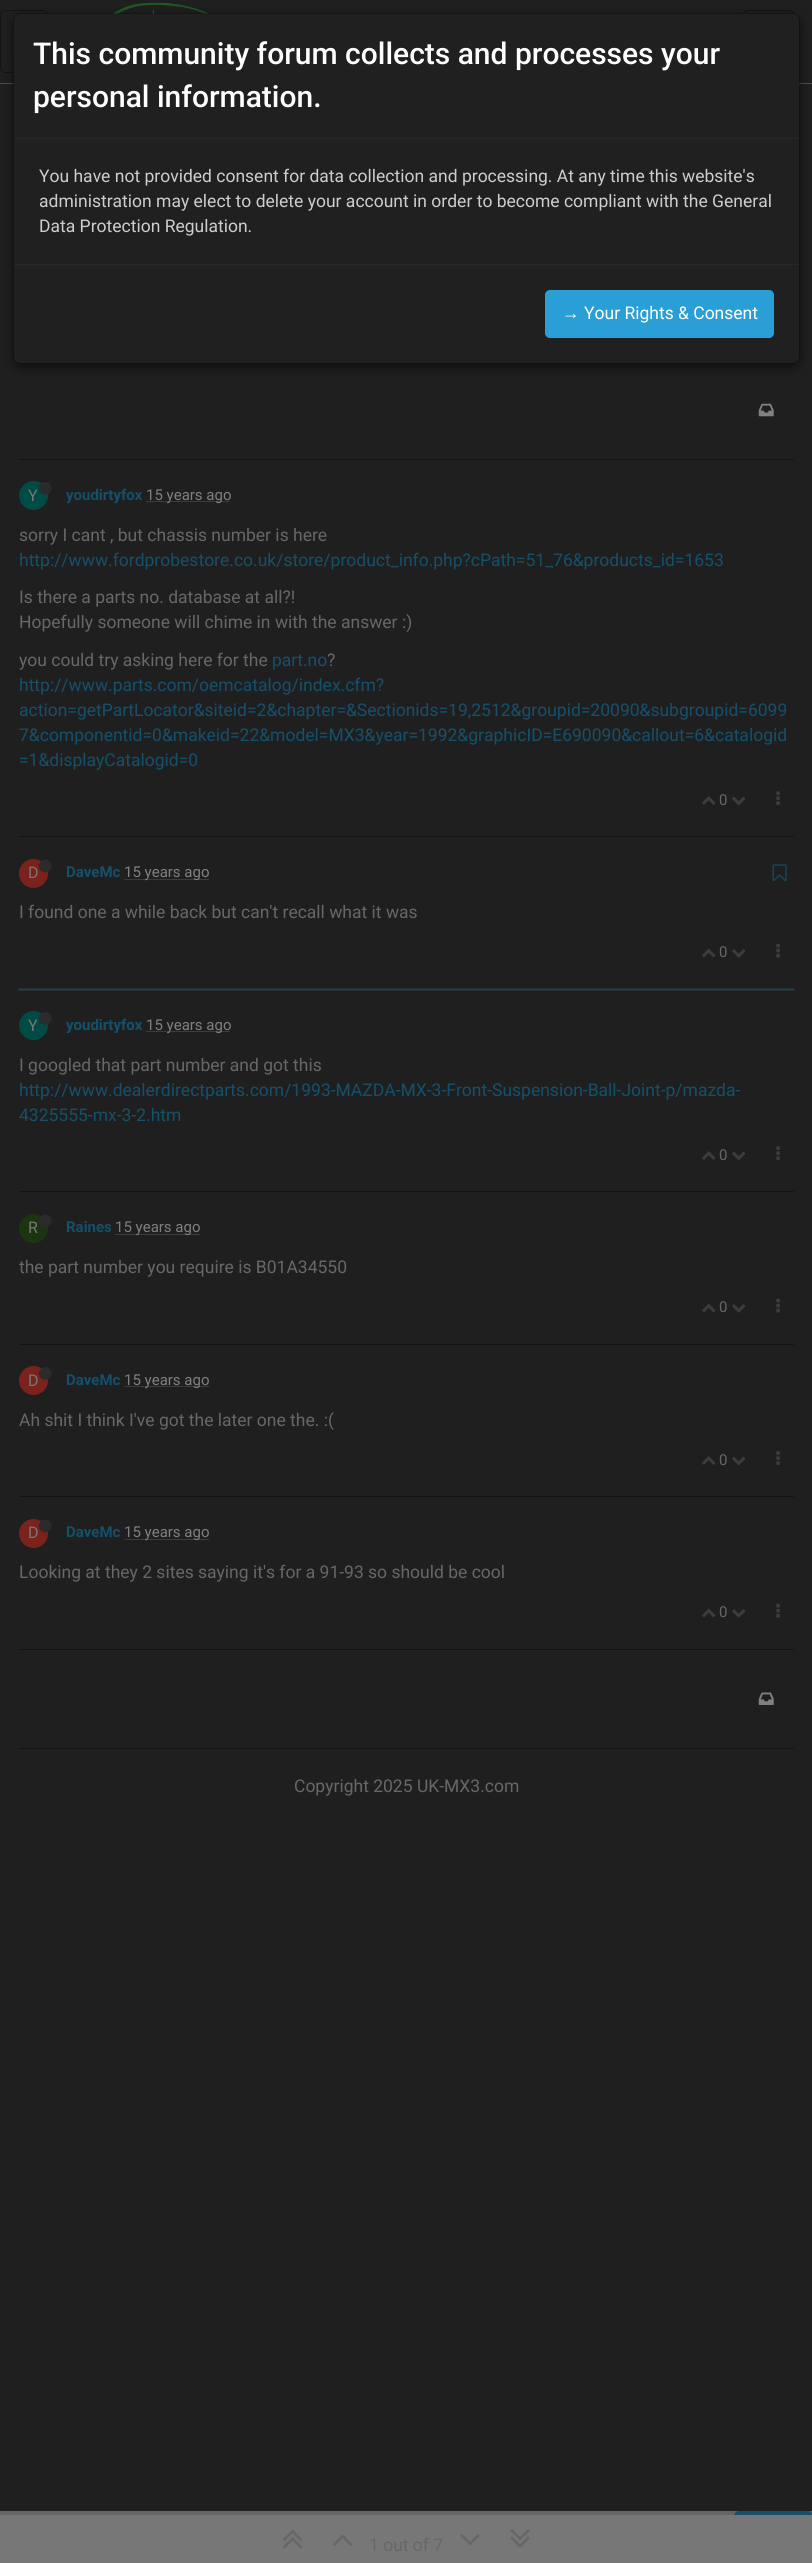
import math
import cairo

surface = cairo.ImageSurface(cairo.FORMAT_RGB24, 812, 2563)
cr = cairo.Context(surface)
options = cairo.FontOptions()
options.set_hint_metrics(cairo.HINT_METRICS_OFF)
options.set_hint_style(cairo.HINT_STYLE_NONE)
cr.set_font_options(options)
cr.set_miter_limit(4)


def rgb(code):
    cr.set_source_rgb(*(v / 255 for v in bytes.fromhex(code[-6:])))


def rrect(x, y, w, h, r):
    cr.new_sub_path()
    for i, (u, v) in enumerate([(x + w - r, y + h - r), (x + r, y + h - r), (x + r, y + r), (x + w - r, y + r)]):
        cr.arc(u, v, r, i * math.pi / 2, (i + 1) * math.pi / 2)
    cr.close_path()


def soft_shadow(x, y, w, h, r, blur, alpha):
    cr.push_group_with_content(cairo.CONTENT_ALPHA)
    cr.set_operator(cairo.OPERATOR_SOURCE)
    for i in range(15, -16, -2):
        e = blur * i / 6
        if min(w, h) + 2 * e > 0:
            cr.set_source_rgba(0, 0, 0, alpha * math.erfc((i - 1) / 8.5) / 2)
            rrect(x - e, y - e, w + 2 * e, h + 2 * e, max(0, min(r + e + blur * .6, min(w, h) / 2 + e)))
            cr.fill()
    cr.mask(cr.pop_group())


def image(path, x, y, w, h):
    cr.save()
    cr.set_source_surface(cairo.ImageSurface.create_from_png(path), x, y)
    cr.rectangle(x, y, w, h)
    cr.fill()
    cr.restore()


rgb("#1f1f1f")
cr.paint()
rgb("#186f27")
cr.rectangle(0, 83, 812, 1)
cr.fill()
image("img/1.png", 112, 2, 97, 12)
rrect(0.5, 10.5, 47, 62, 4.5)
rgb("#141414")
cr.set_line_width(1)
cr.stroke()
image("img/2.png", 13, 33, 1, 17)
rrect(743.5, 10.5, 50, 62, 4.5)
cr.stroke()
rgb("#000000")
soft_shadow(13, 16, 787, 352, 8, 5.5, 0.5)
rgb("#202020")
rrect(14, 14, 785, 349, 6)
cr.fill()
rrect(13.5, 13.5, 786, 350, 7.5)
cr.set_source_rgba(0, 0, 0, 0.2)
cr.stroke()
rgb("#282828")
cr.rectangle(14, 138, 785, 1)
cr.fill()
cr.rectangle(14, 264, 785, 1)
cr.fill()
rgb("#2a9fd6")
rrect(545.5, 290.5, 228, 47, 4.5)
cr.fill_preserve()
cr.stroke()
image("img/3.png", 758, 403, 16, 14)
rgb("#141414")
cr.rectangle(19, 459, 775, 1)
cr.fill()
rgb("#004b44")
cr.arc(33.5, 495.5, 14.5, 0, 2 * math.pi)
cr.fill()
rgb("#2b2b2b")
cr.new_path()
cr.move_to(50.5, 485)
cr.curve_to(55, 492.5, 44, 499, 39.5, 491.5)
cr.curve_to(35.5, 484.5, 46.5, 478, 50.5, 485)
cr.close_path()
cr.fill()
rgb("#3c3c3c")
cr.rectangle(146, 501, 84, 1)
cr.fill()
image("img/4.png", 702, 796, 14, 9)
image("img/5.png", 732, 796, 14, 10)
image("img/6.png", 776, 791, 4, 14)
rgb("#141414")
cr.rectangle(19, 836, 775, 1)
cr.fill()
rgb("#7a221b")
cr.arc(33.5, 873.5, 14.5, 0, 2 * math.pi)
cr.fill()
rgb("#2b2b2b")
cr.new_path()
cr.move_to(50.5, 862.5)
cr.curve_to(55, 870, 44, 876.5, 39.5, 869)
cr.curve_to(35.5, 862, 46.5, 855.5, 50.5, 862.5)
cr.close_path()
cr.fill()
rgb("#3c3c3c")
cr.rectangle(124, 879, 85, 1)
cr.fill()
image("img/7.png", 772, 864, 15, 18)
image("img/8.png", 702, 948, 14, 10)
image("img/9.png", 732, 949, 14, 9)
image("img/10.png", 776, 943, 4, 15)
rgb("#2e606f")
soft_shadow(19, 989, 775, 1, 0, 0.5, 1)
rgb("#124858")
cr.rectangle(19, 989, 775, 1)
cr.fill()
rgb("#004b44")
cr.arc(33.5, 1025.5, 14.5, 0, 2 * math.pi)
cr.fill()
rgb("#2b2b2b")
cr.new_path()
cr.move_to(50.5, 1015)
cr.curve_to(55, 1022.5, 44, 1029, 39.5, 1021.5)
cr.curve_to(35.5, 1014.5, 46.5, 1008, 50.5, 1015)
cr.close_path()
cr.fill()
rgb("#3c3c3c")
cr.rectangle(146, 1031, 84, 1)
cr.fill()
image("img/4.png", 702, 1151, 14, 9)
image("img/5.png", 732, 1151, 14, 10)
image("img/6.png", 776, 1146, 4, 14)
rgb("#141414")
cr.rectangle(19, 1191, 775, 1)
cr.fill()
rgb("#1a350f")
cr.arc(33.5, 1228.5, 14.5, 0, 2 * math.pi)
cr.fill()
rgb("#2b2b2b")
cr.new_path()
cr.move_to(50.5, 1217.5)
cr.curve_to(55, 1225, 44, 1231.5, 39.5, 1224)
cr.curve_to(35.5, 1217, 46.5, 1210.5, 50.5, 1217.5)
cr.close_path()
cr.fill()
rgb("#3c3c3c")
cr.rectangle(115, 1234, 85, 1)
cr.fill()
image("img/8.png", 702, 1303, 14, 10)
image("img/9.png", 732, 1304, 14, 9)
image("img/10.png", 776, 1298, 4, 15)
rgb("#141414")
cr.rectangle(19, 1344, 775, 1)
cr.fill()
rgb("#7a221b")
cr.arc(33.5, 1380.5, 14.5, 0, 2 * math.pi)
cr.fill()
rgb("#2b2b2b")
cr.new_path()
cr.move_to(50.5, 1370)
cr.curve_to(55, 1377.5, 44, 1384, 39.5, 1376.5)
cr.curve_to(35.5, 1369.5, 46.5, 1363, 50.5, 1370)
cr.close_path()
cr.fill()
rgb("#3c3c3c")
cr.rectangle(124, 1386, 85, 1)
cr.fill()
image("img/4.png", 702, 1456, 14, 9)
image("img/5.png", 732, 1456, 14, 10)
image("img/6.png", 776, 1451, 4, 14)
rgb("#141414")
cr.rectangle(19, 1496, 775, 1)
cr.fill()
rgb("#7a221b")
cr.arc(33.5, 1533.5, 14.5, 0, 2 * math.pi)
cr.fill()
rgb("#2b2b2b")
cr.new_path()
cr.move_to(50.5, 1522.5)
cr.curve_to(55, 1530, 44, 1536.5, 39.5, 1529)
cr.curve_to(35.5, 1522, 46.5, 1515.5, 50.5, 1522.5)
cr.close_path()
cr.fill()
rgb("#3c3c3c")
cr.rectangle(124, 1539, 85, 1)
cr.fill()
image("img/8.png", 702, 1608, 14, 10)
image("img/9.png", 732, 1609, 14, 9)
image("img/10.png", 776, 1603, 4, 15)
rgb("#141414")
cr.rectangle(19, 1649, 775, 1)
cr.fill()
image("img/11.png", 758, 1692, 16, 13)
cr.rectangle(19, 1748, 775, 1)
cr.fill()
rgb("#666666")
cr.rectangle(0, 2511, 812, 4)
cr.fill()
rgb("#15506b")
rrect(734.5, 2511.5, 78, 47, 4.5)
cr.fill_preserve()
cr.stroke()
rgb("#777777")
cr.rectangle(0, 2515, 812, 48)
cr.fill()
image("img/12.png", 282, 2529, 21, 20)
image("img/13.png", 332, 2534, 21, 12)
image("img/14.png", 460, 2534, 20, 12)
image("img/15.png", 510, 2529, 20, 19)
cr.select_font_face("Roboto Medium")
cr.set_font_size(30)
rgb("#ffffff")
cr.move_to(33, 64)
cr.show_text("This community forum collects and processes your")
cr.move_to(33, 107)
cr.show_text("personal information.")
cr.select_font_face("Roboto")
cr.set_font_size(17.5)
rgb("#cfcdcd")
for x, y, s in [
    (39, 182, "You have not provided consent for data collection and processing. At any time this website's"),
    (39, 207, "administration may elect to delete your account in order to become compliant with the General"),
    (39, 232, "Data Protection Regulation."),
]:
    cr.move_to(x, y)
    cr.show_text(s)
cr.select_font_face("Liberation Sans")
rgb("#ffffff")
cr.move_to(562, 319)
cr.show_text("→")
cr.select_font_face("Roboto")
cr.move_to(584, 319)
cr.show_text("Your Rights & Consent")
cr.set_font_size(16)
rgb("#777777")
cr.move_to(28, 501)
cr.show_text("Y")
cr.select_font_face("Roboto", cairo.FONT_SLANT_NORMAL, cairo.FONT_WEIGHT_BOLD)
cr.set_font_size(15)
rgb("#15506b")
cr.move_to(66, 500)
cr.show_text("youdirtyfox")
cr.select_font_face("Roboto")
rgb("#808080")
cr.move_to(146, 500)
cr.show_text("15 years ago")
cr.set_font_size(17.5)
rgb("#686767")
cr.move_to(19, 541)
cr.show_text("sorry I cant , but chassis number is here")
rgb("#15506b")
cr.move_to(19, 566)
cr.show_text("http://www.fordprobestore.co.uk/store/product_info.php?cPath=51_76&products_id=1653")
rgb("#686767")
for x, y, s in [
    (19, 603, "Is there a parts no. database at all?!"),
    (19, 628, "Hopefully someone will chime in with the answer :)"),
    (19, 666, "you could try asking here for the"),
]:
    cr.move_to(x, y)
    cr.show_text(s)
rgb("#15506b")
cr.move_to(272, 666)
cr.show_text("part.no")
rgb("#686767")
cr.move_to(327, 666)
cr.show_text("?")
rgb("#15506b")
for x, y, s in [
    (19, 691, "http://www.parts.com/oemcatalog/index.cfm?"),
    (19, 716, "action=getPartLocator&siteid=2&chapter=&Sectionids=19,2512&groupid=20090&subgroupid=6099"),
    (19, 741, "7&componentid=0&makeid=22&model=MX3&year=1992&graphicID=E690090&callout=6&catalogid"),
    (19, 766, "=1&displayCatalogid=0"),
]:
    cr.move_to(x, y)
    cr.show_text(s)
cr.set_font_size(15)
rgb("#686767")
cr.move_to(719, 805)
cr.show_text("0")
cr.set_font_size(16)
rgb("#777777")
cr.move_to(28, 878)
cr.show_text("D")
cr.select_font_face("Roboto", cairo.FONT_SLANT_NORMAL, cairo.FONT_WEIGHT_BOLD)
cr.set_font_size(15)
rgb("#15506b")
cr.move_to(66, 877)
cr.show_text("DaveMc")
cr.select_font_face("Roboto")
rgb("#808080")
cr.move_to(124, 877)
cr.show_text("15 years ago")
cr.set_font_size(17.5)
rgb("#686767")
cr.move_to(19, 918)
cr.show_text("I found one a while back but can't recall what it was")
cr.set_font_size(15)
cr.move_to(719, 957)
cr.show_text("0")
cr.set_font_size(16)
rgb("#777777")
cr.move_to(28, 1031)
cr.show_text("Y")
cr.select_font_face("Roboto", cairo.FONT_SLANT_NORMAL, cairo.FONT_WEIGHT_BOLD)
cr.set_font_size(15)
rgb("#15506b")
cr.move_to(66, 1030)
cr.show_text("youdirtyfox")
cr.select_font_face("Roboto")
rgb("#808080")
cr.move_to(146, 1030)
cr.show_text("15 years ago")
cr.set_font_size(17.5)
rgb("#686767")
cr.move_to(19, 1071)
cr.show_text("I googled that part number and got this")
rgb("#15506b")
cr.move_to(19, 1096)
cr.show_text("http://www.dealerdirectparts.com/1993-MAZDA-MX-3-Front-Suspension-Ball-Joint-p/mazda-")
cr.move_to(19, 1121)
cr.show_text("4325555-mx-3-2.htm")
cr.set_font_size(15)
rgb("#686767")
cr.move_to(719, 1160)
cr.show_text("0")
cr.set_font_size(16)
rgb("#777777")
cr.move_to(28, 1233)
cr.show_text("R")
cr.select_font_face("Roboto", cairo.FONT_SLANT_NORMAL, cairo.FONT_WEIGHT_BOLD)
cr.set_font_size(15)
rgb("#15506b")
cr.move_to(66, 1232)
cr.show_text("Raines")
cr.select_font_face("Roboto")
rgb("#808080")
cr.move_to(115, 1232)
cr.show_text("15 years ago")
cr.set_font_size(17.5)
rgb("#686767")
cr.move_to(19, 1273)
cr.show_text("the part number you require is B01A34550")
cr.set_font_size(15)
cr.move_to(719, 1312)
cr.show_text("0")
cr.set_font_size(16)
rgb("#777777")
cr.move_to(28, 1386)
cr.show_text("D")
cr.select_font_face("Roboto", cairo.FONT_SLANT_NORMAL, cairo.FONT_WEIGHT_BOLD)
cr.set_font_size(15)
rgb("#15506b")
cr.move_to(66, 1385)
cr.show_text("DaveMc")
cr.select_font_face("Roboto")
rgb("#808080")
cr.move_to(124, 1385)
cr.show_text("15 years ago")
cr.set_font_size(17.5)
rgb("#686767")
cr.move_to(19, 1426)
cr.show_text("Ah shit I think I've got the later one the. :(")
cr.set_font_size(15)
cr.move_to(719, 1465)
cr.show_text("0")
cr.set_font_size(16)
rgb("#777777")
cr.move_to(28, 1538)
cr.show_text("D")
cr.select_font_face("Roboto", cairo.FONT_SLANT_NORMAL, cairo.FONT_WEIGHT_BOLD)
cr.set_font_size(15)
rgb("#15506b")
cr.move_to(66, 1537)
cr.show_text("DaveMc")
cr.select_font_face("Roboto")
rgb("#808080")
cr.move_to(124, 1537)
cr.show_text("15 years ago")
cr.set_font_size(17.5)
rgb("#686767")
cr.move_to(19, 1578)
cr.show_text("Looking at they 2 sites saying it's for a 91-93 so should be cool")
cr.set_font_size(15)
cr.move_to(719, 1617)
cr.show_text("0")
cr.set_font_size(17.5)
cr.move_to(369, 2551)
cr.show_text("1 out of 7")
cr.move_to(294, 1792)
cr.show_text("Copyright 2025 UK-MX3.com")
surface.write_to_png("page.png")
